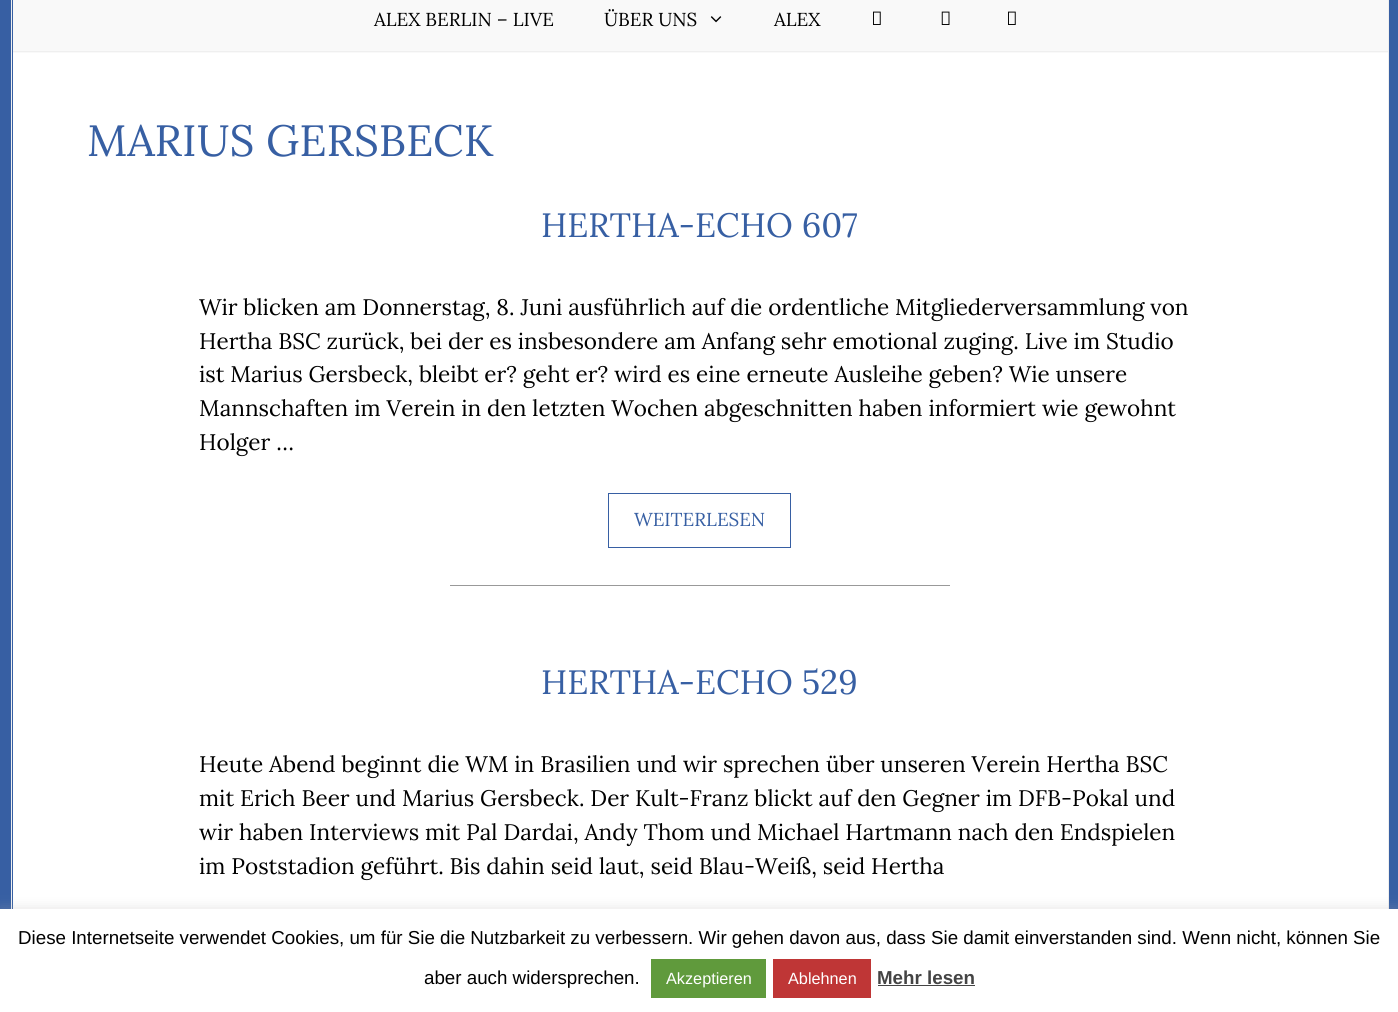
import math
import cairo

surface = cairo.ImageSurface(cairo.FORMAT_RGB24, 1398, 1012)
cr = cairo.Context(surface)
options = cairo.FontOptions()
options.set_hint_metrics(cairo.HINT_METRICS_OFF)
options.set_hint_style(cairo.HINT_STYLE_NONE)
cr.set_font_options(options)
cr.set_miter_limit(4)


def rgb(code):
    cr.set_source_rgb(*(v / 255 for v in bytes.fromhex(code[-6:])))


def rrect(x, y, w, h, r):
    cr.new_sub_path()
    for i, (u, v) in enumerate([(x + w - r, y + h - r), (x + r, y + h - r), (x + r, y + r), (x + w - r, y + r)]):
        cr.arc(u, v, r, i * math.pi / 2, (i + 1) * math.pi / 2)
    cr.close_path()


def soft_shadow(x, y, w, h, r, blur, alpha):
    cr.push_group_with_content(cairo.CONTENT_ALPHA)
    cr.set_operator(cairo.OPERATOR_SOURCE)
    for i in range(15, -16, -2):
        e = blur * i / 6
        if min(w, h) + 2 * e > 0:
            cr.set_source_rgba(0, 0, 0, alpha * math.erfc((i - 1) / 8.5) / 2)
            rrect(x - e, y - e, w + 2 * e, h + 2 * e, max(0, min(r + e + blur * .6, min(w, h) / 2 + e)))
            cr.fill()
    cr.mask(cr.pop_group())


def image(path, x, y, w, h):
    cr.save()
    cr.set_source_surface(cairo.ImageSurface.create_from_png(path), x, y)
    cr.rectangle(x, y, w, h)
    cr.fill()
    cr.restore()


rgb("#375fa3")
cr.paint()
for x, y, w, h, color in [
    (1388, 0, 1, 909, "#efefef"),
    (11, 0, 1, 909, "#efefef"),
    (13, 0, 1375, 53, "#f9f9f9"),
    (13, 51, 1375, 1, "#efefef"),
]:
    rgb(color)
    cr.rectangle(x, y, w, h)
    cr.fill()
image("img/1.png", 710, 16, 12, 7)
image("img/2.png", 873, 11, 8, 14)
image("img/3.png", 941, 11, 9, 14)
image("img/2.png", 1008, 11, 8, 14)
rgb("#ffffff")
cr.rectangle(13, 53, 1375, 856)
cr.fill()
cr.rectangle(608.5, 493.5, 182, 54)
rgb("#375fa3")
cr.set_line_width(1)
cr.stroke()
rgb("#999999")
cr.rectangle(450, 585, 500, 1)
cr.fill()
rgb("#acabab")
soft_shadow(0, 908, 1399, 103, 0, 6, 0.3)
for x, y, w, h, color in [
    (0, 909, 1398, 103, "#ffffff"),
    (651, 959, 115, 39, "#609a3c"),
    (773, 959, 98, 39, "#bf3636"),
    (878, 985, 97, 1, "#444444"),
]:
    rgb(color)
    cr.rectangle(x, y, w, h)
    cr.fill()
cr.select_font_face("Lora")
cr.set_font_size(18.75)
rgb("#000000")
for x, y, s in [
    (374, 26, "ALEX BERLIN – LIVE"),
    (604, 26, "ÜBER UNS"),
    (774, 26, "ALEX"),
]:
    cr.move_to(x, y)
    cr.show_text(s)
cr.set_font_size(43.75)
rgb("#375fa3")
cr.move_to(87, 156)
cr.show_text("MARIUS GERSBECK")
cr.set_font_size(33.75)
cr.move_to(541, 237)
cr.show_text("HERTHA-ECHO 607")
cr.set_font_size(22.5)
rgb("#000000")
for x, y, s in [
    (199, 315, "Wir blicken am Donnerstag, 8. Juni ausführlich auf die ordentliche Mitgliederversammlung von"),
    (199, 349, "Hertha BSC zurück, bei der es insbesondere am Anfang sehr emotional zuging. Live im Studio"),
    (199, 382, "ist Marius Gersbeck, bleibt er? geht er? wird es eine erneute Ausleihe geben? Wie unsere"),
    (199, 416, "Mannschaften im Verein in den letzten Wochen abgeschnitten haben informiert wie gewohnt"),
    (199, 450, "Holger …"),
]:
    cr.move_to(x, y)
    cr.show_text(s)
cr.set_font_size(18.75)
rgb("#375fa3")
cr.move_to(634, 526)
cr.show_text("WEITERLESEN")
cr.set_font_size(33.75)
cr.move_to(541, 694)
cr.show_text("HERTHA-ECHO 529")
cr.set_font_size(22.5)
rgb("#000000")
for x, y, s in [
    (199, 772, "Heute Abend beginnt die WM in Brasilien und wir sprechen über unseren Verein Hertha BSC"),
    (199, 806, "mit Erich Beer und Marius Gersbeck. Der Kult-Franz blickt auf den Gegner im DFB-Pokal und"),
    (199, 840, "wir haben Interviews mit Pal Dardai, Andy Thom und Michael Hartmann nach den Endspielen"),
    (199, 874, "im Poststadion geführt. Bis dahin seid laut, seid Blau-Weiß, seid Hertha"),
]:
    cr.move_to(x, y)
    cr.show_text(s)
cr.select_font_face("Liberation Sans")
cr.set_font_size(18.75)
cr.move_to(18, 944)
cr.show_text("Diese Internetseite verwendet Cookies, um für Sie die Nutzbarkeit zu verbessern. Wir gehen davon aus, dass Sie damit einverstanden sind. Wenn nicht, können Sie")
cr.move_to(424, 984)
cr.show_text("aber auch widersprechen.")
cr.set_font_size(16.25)
rgb("#ffffff")
cr.move_to(666, 984)
cr.show_text("Akzeptieren")
cr.move_to(788, 984)
cr.show_text("Ablehnen")
cr.select_font_face("Liberation Sans", cairo.FONT_SLANT_NORMAL, cairo.FONT_WEIGHT_BOLD)
cr.set_font_size(18.75)
rgb("#444444")
cr.move_to(877, 984)
cr.show_text("Mehr lesen")
surface.write_to_png("page.png")
